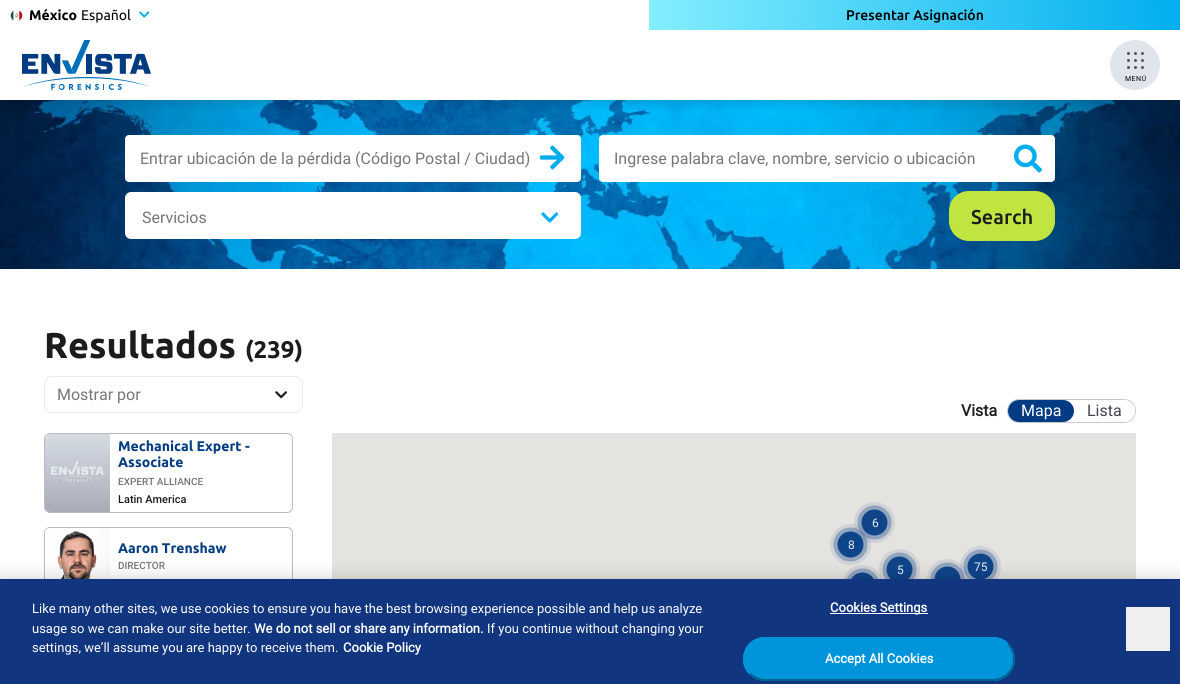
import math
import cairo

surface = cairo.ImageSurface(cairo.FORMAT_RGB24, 1180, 684)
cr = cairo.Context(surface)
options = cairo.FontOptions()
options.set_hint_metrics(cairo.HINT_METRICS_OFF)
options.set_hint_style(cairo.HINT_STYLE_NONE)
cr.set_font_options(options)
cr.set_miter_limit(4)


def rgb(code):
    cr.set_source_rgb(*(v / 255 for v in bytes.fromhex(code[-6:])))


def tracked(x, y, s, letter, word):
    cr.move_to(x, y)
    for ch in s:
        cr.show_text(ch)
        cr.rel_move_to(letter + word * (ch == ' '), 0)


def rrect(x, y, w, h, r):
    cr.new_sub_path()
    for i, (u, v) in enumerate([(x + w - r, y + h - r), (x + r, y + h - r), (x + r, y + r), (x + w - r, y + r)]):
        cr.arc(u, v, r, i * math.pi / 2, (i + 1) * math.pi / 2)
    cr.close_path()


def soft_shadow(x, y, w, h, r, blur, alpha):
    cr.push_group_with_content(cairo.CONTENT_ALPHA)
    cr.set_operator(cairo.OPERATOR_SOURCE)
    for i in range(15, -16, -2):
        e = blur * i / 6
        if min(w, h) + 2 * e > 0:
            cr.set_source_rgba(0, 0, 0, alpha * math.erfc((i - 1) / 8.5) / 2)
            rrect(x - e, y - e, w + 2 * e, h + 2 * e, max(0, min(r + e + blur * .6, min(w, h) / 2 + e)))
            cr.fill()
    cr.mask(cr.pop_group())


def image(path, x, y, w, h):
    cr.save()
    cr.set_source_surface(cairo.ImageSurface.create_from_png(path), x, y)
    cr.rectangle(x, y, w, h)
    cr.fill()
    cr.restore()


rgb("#ffffff")
cr.paint()
image("img/5.png", 0, 100, 1180, 169)
cr.save()
cr.rectangle(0, 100, 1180, 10)
cr.clip()
rgb("#000000")
soft_shadow(0, 0, 1180, 100, 0, 8, 0.2)
cr.restore()
image("img/1.png", 10, 10, 13, 11)
image("img/2.png", 139, 11, 11, 7)
gradient = cairo.LinearGradient(649, 24, 1180, 5.7)
gradient.add_color_stop_rgba(0, 0.518, 0.933, 1, 1)
gradient.add_color_stop_rgba(1, 0, 0.682, 0.937, 1)
cr.set_source(gradient)
cr.rectangle(649, 0, 531, 30)
cr.fill()
image("img/3.png", 22, 40, 129, 50)
rgb("#e0e4eb")
cr.arc(1135, 65, 25, 0, 2 * math.pi)
cr.fill()
image("img/4.png", 1127, 52, 17, 17)
rgb("#ffffff")
rrect(125, 135, 456, 47, 4)
cr.fill()
image("img/6.png", 540, 145, 25, 25)
rrect(599, 135, 456, 47, 4)
cr.fill()
image("img/7.png", 1014, 144, 28, 29)
rrect(125, 192, 456, 47, 6)
cr.fill()
image("img/8.png", 541, 212, 18, 11)
rgb("#c0e540")
rrect(949, 191, 106, 50, 20)
cr.fill()
rrect(44.5, 376.5, 258, 36, 7.5)
rgb("#e9eaed")
cr.set_line_width(1)
cr.stroke()
image("img/9.png", 275, 391, 12, 8)
rrect(1007.5, 399.5, 128, 23, 11.5)
rgb("#c6c9cf")
cr.stroke()
rgb("#013b82")
rrect(1008, 400, 66, 22, 11)
cr.fill()
rgb("#ffffff")
rrect(1074, 400, 61, 22, 11)
cr.fill()
rrect(44.5, 433.5, 248, 79, 5.5)
rgb("#b8babf")
cr.stroke()
image("img/10.png", 45, 434, 65, 78)
rrect(44.5, 527.5, 248, 79, 5.5)
cr.stroke()
image("img/11.png", 45, 528, 65, 51)
rgb("#e5e3df")
cr.rectangle(332, 433, 804, 146)
cr.fill()
rgb("#184c8b")
cr.arc(874.5, 522.5, 13, 0, 2 * math.pi)
cr.fill()
cr.set_source_rgba(0.004, 0.231, 0.51, 0.3)
cr.arc(874.5, 522.5, 17, 0, 2 * math.pi)
cr.fill()
cr.set_source_rgba(0.004, 0.231, 0.51, 0.1)
cr.arc(874.5, 522.5, 20.5, 0, 2 * math.pi)
cr.fill()
cr.set_source_rgba(0.004, 0.231, 0.51, 0.9)
cr.arc(850.5, 544.5, 13, 0, 2 * math.pi)
cr.fill()
cr.set_source_rgba(0.004, 0.231, 0.51, 0.3)
cr.arc(850.5, 544.5, 17, 0, 2 * math.pi)
cr.fill()
cr.set_source_rgba(0.004, 0.231, 0.51, 0.1)
cr.arc(850.5, 544.5, 20.5, 0, 2 * math.pi)
cr.fill()
rgb("#184c8b")
cr.arc(899.5, 569.5, 13, 0, 2 * math.pi)
cr.fill()
cr.set_source_rgba(0.004, 0.231, 0.51, 0.3)
cr.arc(899.5, 569.5, 17, 0, 2 * math.pi)
cr.fill()
cr.set_source_rgba(0.004, 0.231, 0.51, 0.1)
cr.arc(899.5, 569.5, 20.5, 0, 2 * math.pi)
cr.fill()
rgb("#184c8b")
cr.arc(980.5, 566.5, 13, 0, 2 * math.pi)
cr.fill()
cr.set_source_rgba(0.004, 0.231, 0.51, 0.3)
cr.arc(980.5, 566.5, 17, 0, 2 * math.pi)
cr.fill()
cr.set_source_rgba(0.004, 0.231, 0.51, 0.1)
cr.arc(980.5, 566.5, 20.5, 0, 2 * math.pi)
cr.fill()
rgb("#184c8b")
cr.arc(947.5, 579.5, 13, 0, 2 * math.pi)
cr.fill()
cr.set_source_rgba(0.004, 0.231, 0.51, 0.3)
cr.arc(947.5, 579.5, 17, 0, 2 * math.pi)
cr.fill()
cr.set_source_rgba(0.004, 0.231, 0.51, 0.1)
cr.arc(947.5, 579.5, 20.5, 0, 2 * math.pi)
cr.fill()
rgb("#184c8b")
cr.arc(862.5, 585.5, 13, 0, 2 * math.pi)
cr.fill()
cr.set_source_rgba(0.004, 0.231, 0.51, 0.3)
cr.arc(862.5, 585.5, 17, 0, 2 * math.pi)
cr.fill()
cr.set_source_rgba(0.004, 0.231, 0.51, 0.1)
cr.arc(862.5, 585.5, 20.5, 0, 2 * math.pi)
cr.fill()
rgb("#000000")
soft_shadow(0, 579, 1180, 105, 0, 9, 0.2)
rgb("#11357e")
cr.rectangle(0, 579, 1180, 105)
cr.fill()
rgb("#ffffff")
cr.rectangle(830, 613, 98, 1)
cr.fill()
rgb("#0095da")
rrect(743, 637, 272, 44, 22)
cr.fill()
cr.new_path()
cr.move_to(1008, 644)
cr.curve_to(1012, 648, 1014, 653.5, 1014, 659)
cr.curve_to(1014, 664.5, 1012, 670, 1008, 673.5)
cr.curve_to(1004, 677.5, 998.5, 680, 993, 680)
cr.line_to(765, 680)
cr.curve_to(759.5, 680, 754, 677.5, 750, 673.5)
rgb("#006391")
cr.set_line_width(2)
cr.stroke()
cr.new_path()
cr.move_to(750, 673.5)
cr.curve_to(746, 670, 744, 664.5, 744, 659)
cr.curve_to(744, 653.5, 746, 648, 750, 644)
cr.curve_to(754, 640, 759.5, 638, 765, 638)
cr.line_to(993, 638)
cr.curve_to(998.5, 638, 1004, 640, 1008, 644)
rgb("#0095da")
cr.stroke()
rgb("#efefef")
cr.rectangle(1126, 607, 44, 44)
cr.fill()
cr.select_font_face("Ubuntu", cairo.FONT_SLANT_NORMAL, cairo.FONT_WEIGHT_BOLD)
cr.set_font_size(14)
rgb("#000000")
cr.move_to(29, 20)
cr.show_text("México")
cr.select_font_face("Ubuntu")
cr.move_to(81, 20)
cr.show_text("Español")
cr.select_font_face("Ubuntu Medium")
cr.move_to(846, 20)
cr.show_text("Presentar Asignación")
cr.select_font_face("Roboto")
cr.set_font_size(7)
tracked(1125, 81, "MENÚ", 0.5, 0)
cr.set_font_size(16)
rgb("#767676")
for x, y, s in [
    (140, 164, "Entrar ubicación de la pérdida (Código Postal / Ciudad)"),
    (614, 164, "Ingrese palabra clave, nombre, servicio o ubicación"),
    (142, 223, "Servicios"),
]:
    cr.move_to(x, y)
    cr.show_text(s)
cr.select_font_face("Ubuntu Medium")
cr.set_font_size(20)
rgb("#1b1c1e")
cr.move_to(971, 224)
cr.show_text("Search")
cr.select_font_face("Ubuntu", cairo.FONT_SLANT_NORMAL, cairo.FONT_WEIGHT_BOLD)
cr.set_font_size(36)
cr.move_to(44, 358)
cr.show_text("Resultados")
cr.set_font_size(24)
cr.move_to(245, 358)
cr.show_text("(239)")
cr.select_font_face("Roboto")
cr.set_font_size(16)
rgb("#767676")
cr.move_to(57, 400)
cr.show_text("Mostrar por")
cr.select_font_face("Roboto", cairo.FONT_SLANT_NORMAL, cairo.FONT_WEIGHT_BOLD)
rgb("#1b1c1e")
cr.move_to(961, 416)
cr.show_text("Vista")
cr.select_font_face("Roboto")
rgb("#ffffff")
cr.move_to(1021, 416)
cr.show_text("Mapa")
rgb("#40444b")
cr.move_to(1087, 416)
cr.show_text("Lista")
cr.select_font_face("Ubuntu", cairo.FONT_SLANT_NORMAL, cairo.FONT_WEIGHT_BOLD)
cr.set_font_size(14)
rgb("#013b82")
cr.move_to(118, 451)
cr.show_text("Mechanical Expert -")
cr.move_to(118, 467)
cr.show_text("Associate")
cr.select_font_face("Roboto Medium")
cr.set_font_size(10)
rgb("#767676")
cr.move_to(118, 485)
cr.show_text("EXPERT ALLIANCE")
cr.set_font_size(11)
rgb("#1b1c1e")
cr.move_to(118, 503)
cr.show_text("Latin America")
cr.select_font_face("Ubuntu", cairo.FONT_SLANT_NORMAL, cairo.FONT_WEIGHT_BOLD)
cr.set_font_size(14)
rgb("#013b82")
cr.move_to(118, 553)
cr.show_text("Aaron Trenshaw")
cr.select_font_face("Roboto Medium")
cr.set_font_size(10)
rgb("#767676")
cr.move_to(118, 569)
cr.show_text("DIRECTOR")
cr.select_font_face("Roboto")
cr.set_font_size(12)
rgb("#e7ecf3")
for x, y, s in [
    (872, 527, "6"),
    (848, 549, "8"),
    (897, 574, "5"),
    (974, 571, "75"),
]:
    cr.move_to(x, y)
    cr.show_text(s)
cr.set_font_size(13)
rgb("#ffffff")
cr.move_to(32, 613)
cr.show_text("Like many other sites, we use cookies to ensure you have the best browsing experience possible and help us analyze")
cr.move_to(32, 633)
cr.show_text("usage so we can make our site better.")
cr.select_font_face("Roboto", cairo.FONT_SLANT_NORMAL, cairo.FONT_WEIGHT_BOLD)
cr.move_to(254, 633)
cr.show_text("We do not sell or share any information.")
cr.select_font_face("Roboto")
cr.move_to(487, 633)
cr.show_text("If you continue without changing your")
cr.move_to(32, 652)
cr.show_text("settings, we’ll assume you are happy to receive them.")
cr.select_font_face("Roboto", cairo.FONT_SLANT_NORMAL, cairo.FONT_WEIGHT_BOLD)
for x, y, s in [
    (343, 652, "Cookie Policy"),
    (830, 612, "Cookies Settings"),
    (825, 663, "Accept All Cookies"),
]:
    cr.move_to(x, y)
    cr.show_text(s)
surface.write_to_png("page.png")
